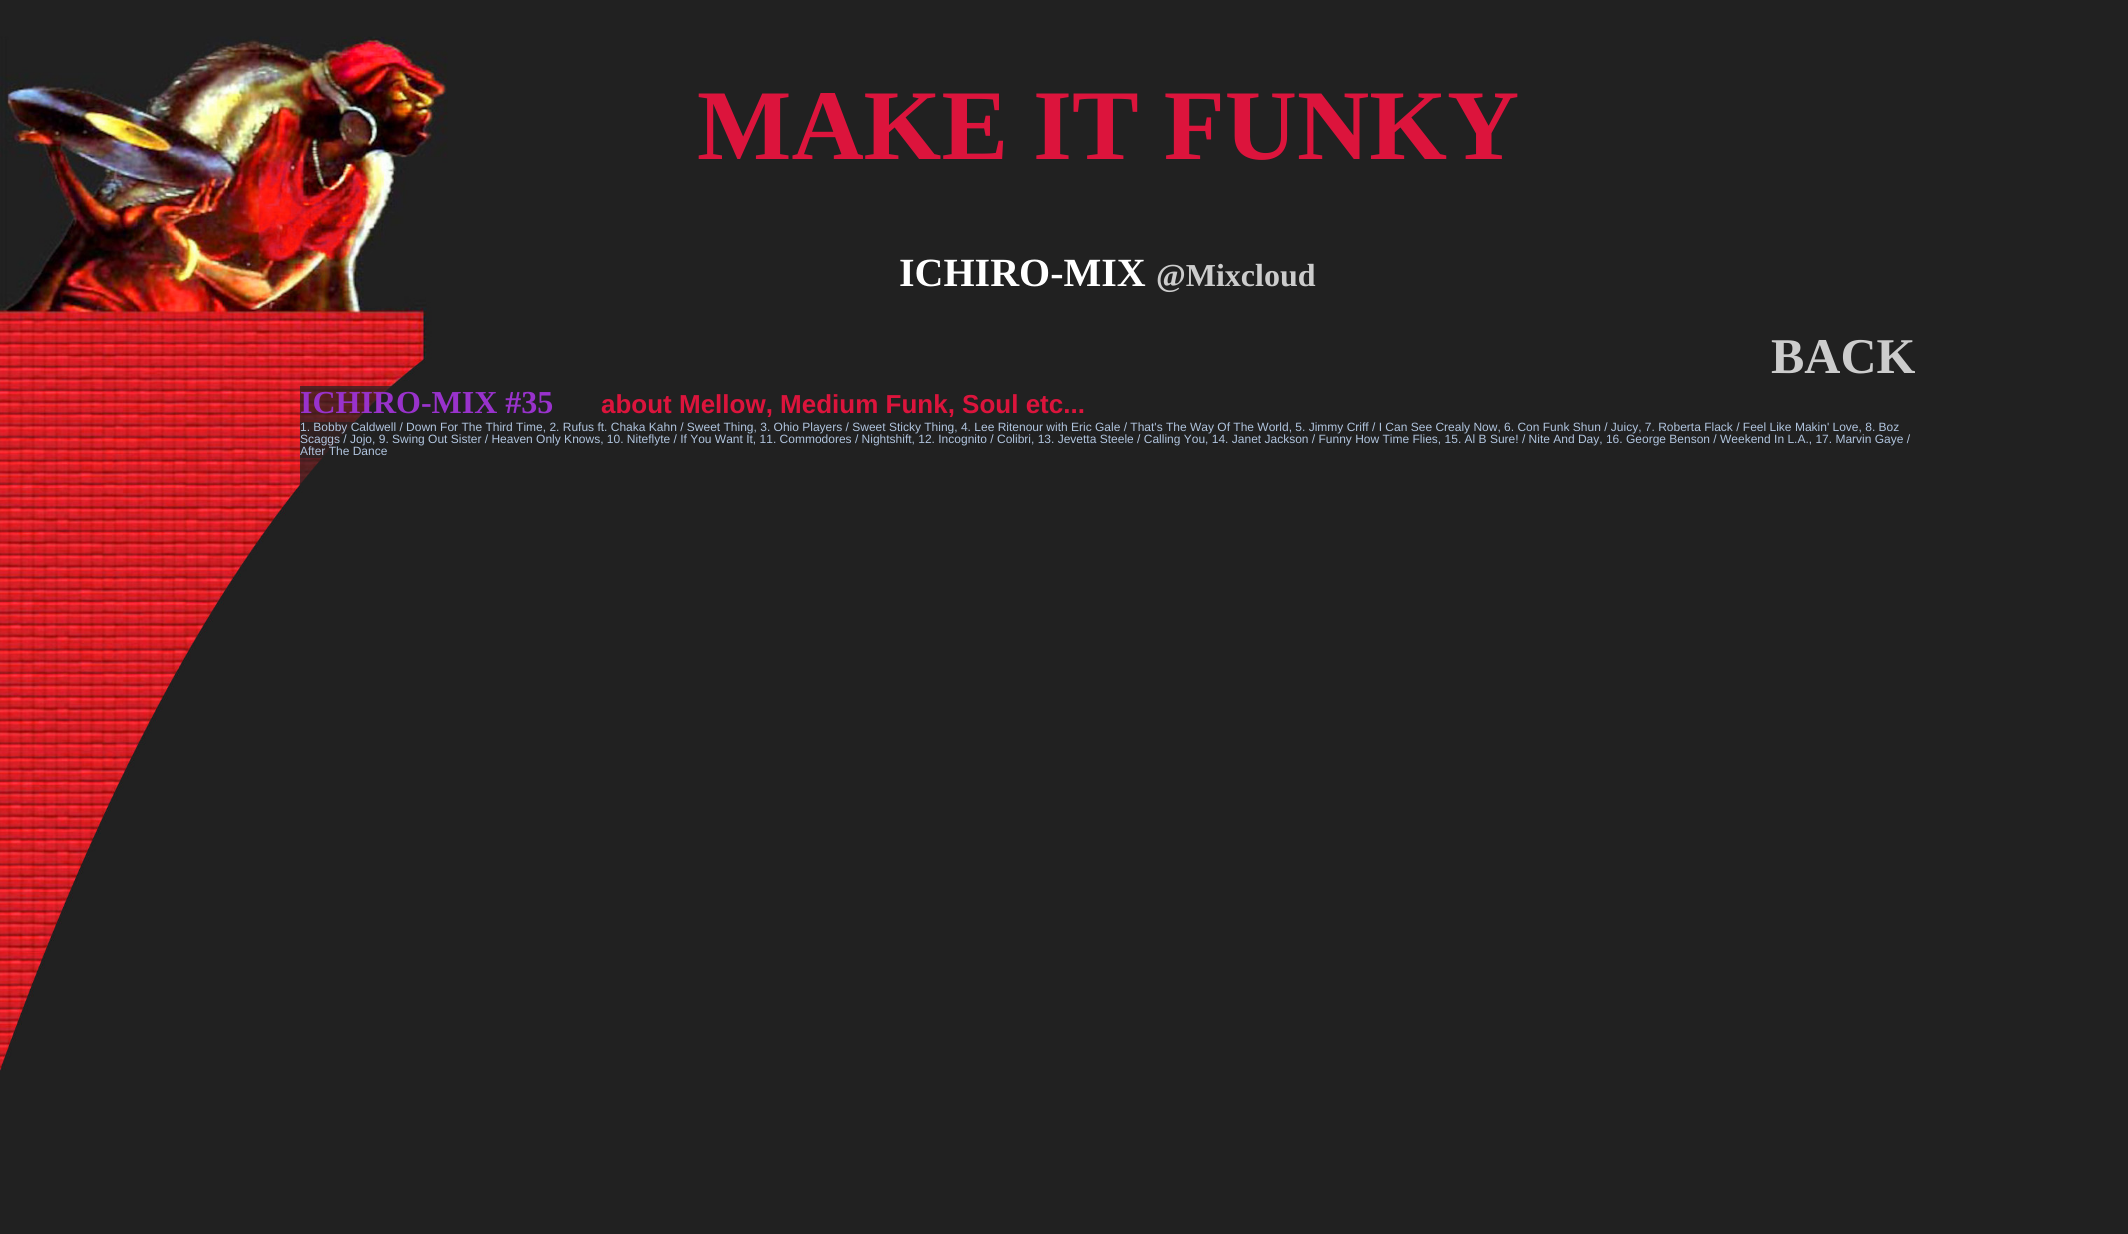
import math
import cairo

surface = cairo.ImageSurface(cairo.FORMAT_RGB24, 2128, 1234)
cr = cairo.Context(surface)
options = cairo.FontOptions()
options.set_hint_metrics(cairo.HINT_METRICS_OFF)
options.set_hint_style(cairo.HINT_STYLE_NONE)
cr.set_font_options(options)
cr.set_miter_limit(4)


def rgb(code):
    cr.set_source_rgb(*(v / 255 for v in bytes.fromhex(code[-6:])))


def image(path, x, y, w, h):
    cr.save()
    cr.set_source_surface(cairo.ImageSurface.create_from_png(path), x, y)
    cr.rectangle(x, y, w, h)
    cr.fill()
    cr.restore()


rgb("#212121")
cr.paint()
image("img/1.png", 0, 36, 448, 1035)
cr.set_source_rgba(0.129, 0.129, 0.129, 0.7)
cr.rectangle(300, 386, 95, 107)
cr.fill()
cr.rectangle(300, 422, 55, 36)
cr.fill()
cr.select_font_face("Liberation Serif", cairo.FONT_SLANT_NORMAL, cairo.FONT_WEIGHT_BOLD)
cr.set_font_size(100)
rgb("#dc143c")
cr.move_to(697, 159)
cr.show_text("MAKE IT FUNKY")
cr.set_font_size(40)
rgb("#ffffff")
cr.move_to(899, 286)
cr.show_text("ICHIRO-MIX")
cr.set_font_size(32)
rgb("#cccccc")
cr.move_to(1156, 286)
cr.show_text("@Mixcloud")
cr.set_font_size(50)
cr.move_to(1771, 373)
cr.show_text("BACK")
cr.set_font_size(32)
rgb("#9932cc")
cr.move_to(300, 413)
cr.show_text("ICHIRO-MIX #35")
cr.select_font_face("Liberation Sans", cairo.FONT_SLANT_NORMAL, cairo.FONT_WEIGHT_BOLD)
cr.set_font_size(26)
rgb("#dc143c")
cr.move_to(601, 413)
cr.show_text("about Mellow, Medium Funk, Soul etc...")
cr.select_font_face("Liberation Sans")
cr.set_font_size(12)
rgb("#b0c4de")
for x, y, s in [
    (300, 431, "1. Bobby Caldwell / Down For The Third Time, 2. Rufus ft. Chaka Kahn / Sweet Thing, 3. Ohio Players / Sweet Sticky Thing, 4. Lee Ritenour with Eric Gale / That's The Way Of The World, 5. Jimmy Criff / I Can See Crealy Now, 6. Con Funk Shun / Juicy, 7. Roberta Flack / Feel Like Makin' Love, 8. Boz"),
    (300, 443, "Scaggs / Jojo, 9. Swing Out Sister / Heaven Only Knows, 10. Niteflyte / If You Want It, 11. Commodores / Nightshift, 12. Incognito / Colibri, 13. Jevetta Steele / Calling You, 14. Janet Jackson / Funny How Time Flies, 15. Al B Sure! / Nite And Day, 16. George Benson / Weekend In L.A., 17. Marvin Gaye /"),
    (300, 455, "After The Dance"),
]:
    cr.move_to(x, y)
    cr.show_text(s)
surface.write_to_png("page.png")
